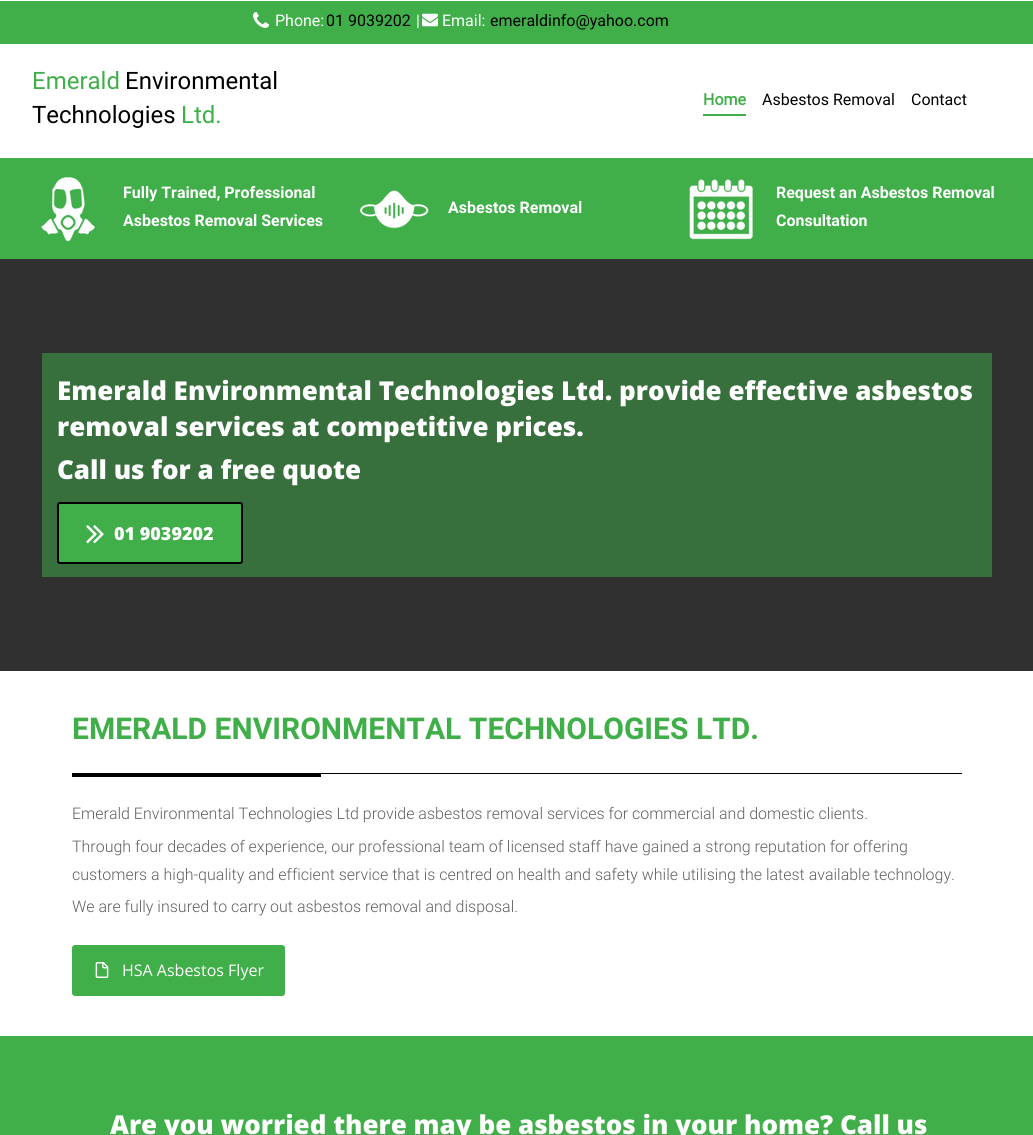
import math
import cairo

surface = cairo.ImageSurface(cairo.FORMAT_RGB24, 1033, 1135)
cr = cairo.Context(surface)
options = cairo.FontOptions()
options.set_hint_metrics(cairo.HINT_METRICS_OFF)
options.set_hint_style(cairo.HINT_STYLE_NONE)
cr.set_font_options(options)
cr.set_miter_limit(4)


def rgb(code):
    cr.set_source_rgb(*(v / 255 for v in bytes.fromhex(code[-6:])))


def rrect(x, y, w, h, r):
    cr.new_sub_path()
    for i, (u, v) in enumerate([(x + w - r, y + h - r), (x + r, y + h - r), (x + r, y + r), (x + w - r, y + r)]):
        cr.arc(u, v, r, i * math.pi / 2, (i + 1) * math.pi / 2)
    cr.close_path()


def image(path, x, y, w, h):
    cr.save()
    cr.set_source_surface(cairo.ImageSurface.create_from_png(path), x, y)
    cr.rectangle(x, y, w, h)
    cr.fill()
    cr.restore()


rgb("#ffffff")
cr.paint()
rgb("#40ae49")
cr.rectangle(0, 1, 1033, 43)
cr.fill()
image("img/1.png", 253, 12, 16, 16)
image("img/2.png", 422, 13, 16, 14)
cr.rectangle(703, 114, 43, 2)
cr.fill()
cr.rectangle(0, 158, 1033, 101)
cr.fill()
image("img/3.png", 41, 177, 54, 65)
image("img/4.png", 359, 190, 70, 39)
image("img/5.png", 689, 179, 64, 62)
rgb("#303030")
cr.rectangle(0, 259, 1033, 412)
cr.fill()
rgb("#38703d")
cr.rectangle(42, 353, 950, 224)
cr.fill()
rgb("#40ae49")
rrect(58, 503, 184, 60, 2)
cr.fill_preserve()
rgb("#000000")
cr.stroke()
image("img/6.png", 86, 525, 18, 19)
cr.rectangle(72, 773, 890, 1)
cr.fill()
cr.rectangle(72, 774, 249, 3)
cr.fill()
rgb("#40ae49")
rrect(72, 945, 213, 51, 3)
cr.fill()
image("img/7.png", 95, 962, 14, 16)
cr.rectangle(0, 1036, 1033, 99)
cr.fill()
cr.select_font_face("Roboto")
cr.set_font_size(16)
rgb("#ffffff")
cr.move_to(275, 26)
cr.show_text("Phone:")
rgb("#000000")
cr.move_to(326, 26)
cr.show_text("01 9039202")
rgb("#ffffff")
cr.move_to(416, 26)
cr.show_text("|")
cr.move_to(442, 26)
cr.show_text("Email:")
rgb("#000000")
cr.move_to(490, 26)
cr.show_text("emeraldinfo@yahoo.com")
cr.set_font_size(24)
rgb("#40ae49")
cr.move_to(32, 89)
cr.show_text("Emerald")
rgb("#000000")
cr.move_to(125, 89)
cr.show_text("Environmental")
cr.move_to(32, 123)
cr.show_text("Technologies")
rgb("#40ae49")
cr.move_to(181, 123)
cr.show_text("Ltd.")
cr.select_font_face("Roboto", cairo.FONT_SLANT_NORMAL, cairo.FONT_WEIGHT_BOLD)
cr.set_font_size(16)
cr.move_to(703, 105)
cr.show_text("Home")
cr.select_font_face("Roboto")
rgb("#000000")
cr.move_to(762, 105)
cr.show_text("Asbestos Removal")
cr.move_to(911, 105)
cr.show_text("Contact")
cr.select_font_face("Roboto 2", cairo.FONT_SLANT_NORMAL, cairo.FONT_WEIGHT_BOLD)
rgb("#ffffff")
for x, y, s in [
    (123, 198, "Fully Trained, Professional"),
    (123, 226, "Asbestos Removal Services"),
    (448, 213, "Asbestos Removal"),
    (776, 198, "Request an Asbestos Removal"),
    (776, 226, "Consultation"),
]:
    cr.move_to(x, y)
    cr.show_text(s)
cr.select_font_face("Open Sans ExtraBold")
cr.set_font_size(26)
for x, y, s in [
    (57, 400, "Emerald Environmental Technologies Ltd. provide effective asbestos"),
    (57, 436, "removal services at competitive prices."),
    (57, 479, "Call us for a free quote"),
]:
    cr.move_to(x, y)
    cr.show_text(s)
cr.set_font_size(18)
cr.move_to(114, 540)
cr.show_text("01 9039202")
cr.select_font_face("Roboto 2", cairo.FONT_SLANT_NORMAL, cairo.FONT_WEIGHT_BOLD)
cr.set_font_size(30)
rgb("#40ae49")
cr.move_to(72, 739)
cr.show_text("EMERALD ENVIRONMENTAL TECHNOLOGIES LTD.")
cr.select_font_face("Roboto Light")
cr.set_font_size(16)
rgb("#606060")
for x, y, s in [
    (72, 819, "Emerald Environmental Technologies Ltd provide asbestos removal services for commercial and domestic clients."),
    (72, 852, "Through four decades of experience, our professional team of licensed staff have gained a strong reputation for offering"),
    (72, 880, "customers a high-quality and efficient service that is centred on health and safety while utilising the latest available technology."),
    (72, 912, "We are fully insured to carry out asbestos removal and disposal."),
]:
    cr.move_to(x, y)
    cr.show_text(s)
cr.select_font_face("Open Sans")
rgb("#ffffff")
cr.move_to(122, 976)
cr.show_text("HSA Asbestos Flyer")
cr.select_font_face("Open Sans ExtraBold")
cr.set_font_size(26)
cr.move_to(110, 1134)
cr.show_text("Are you worried there may be asbestos in your home? Call us")
surface.write_to_png("page.png")
